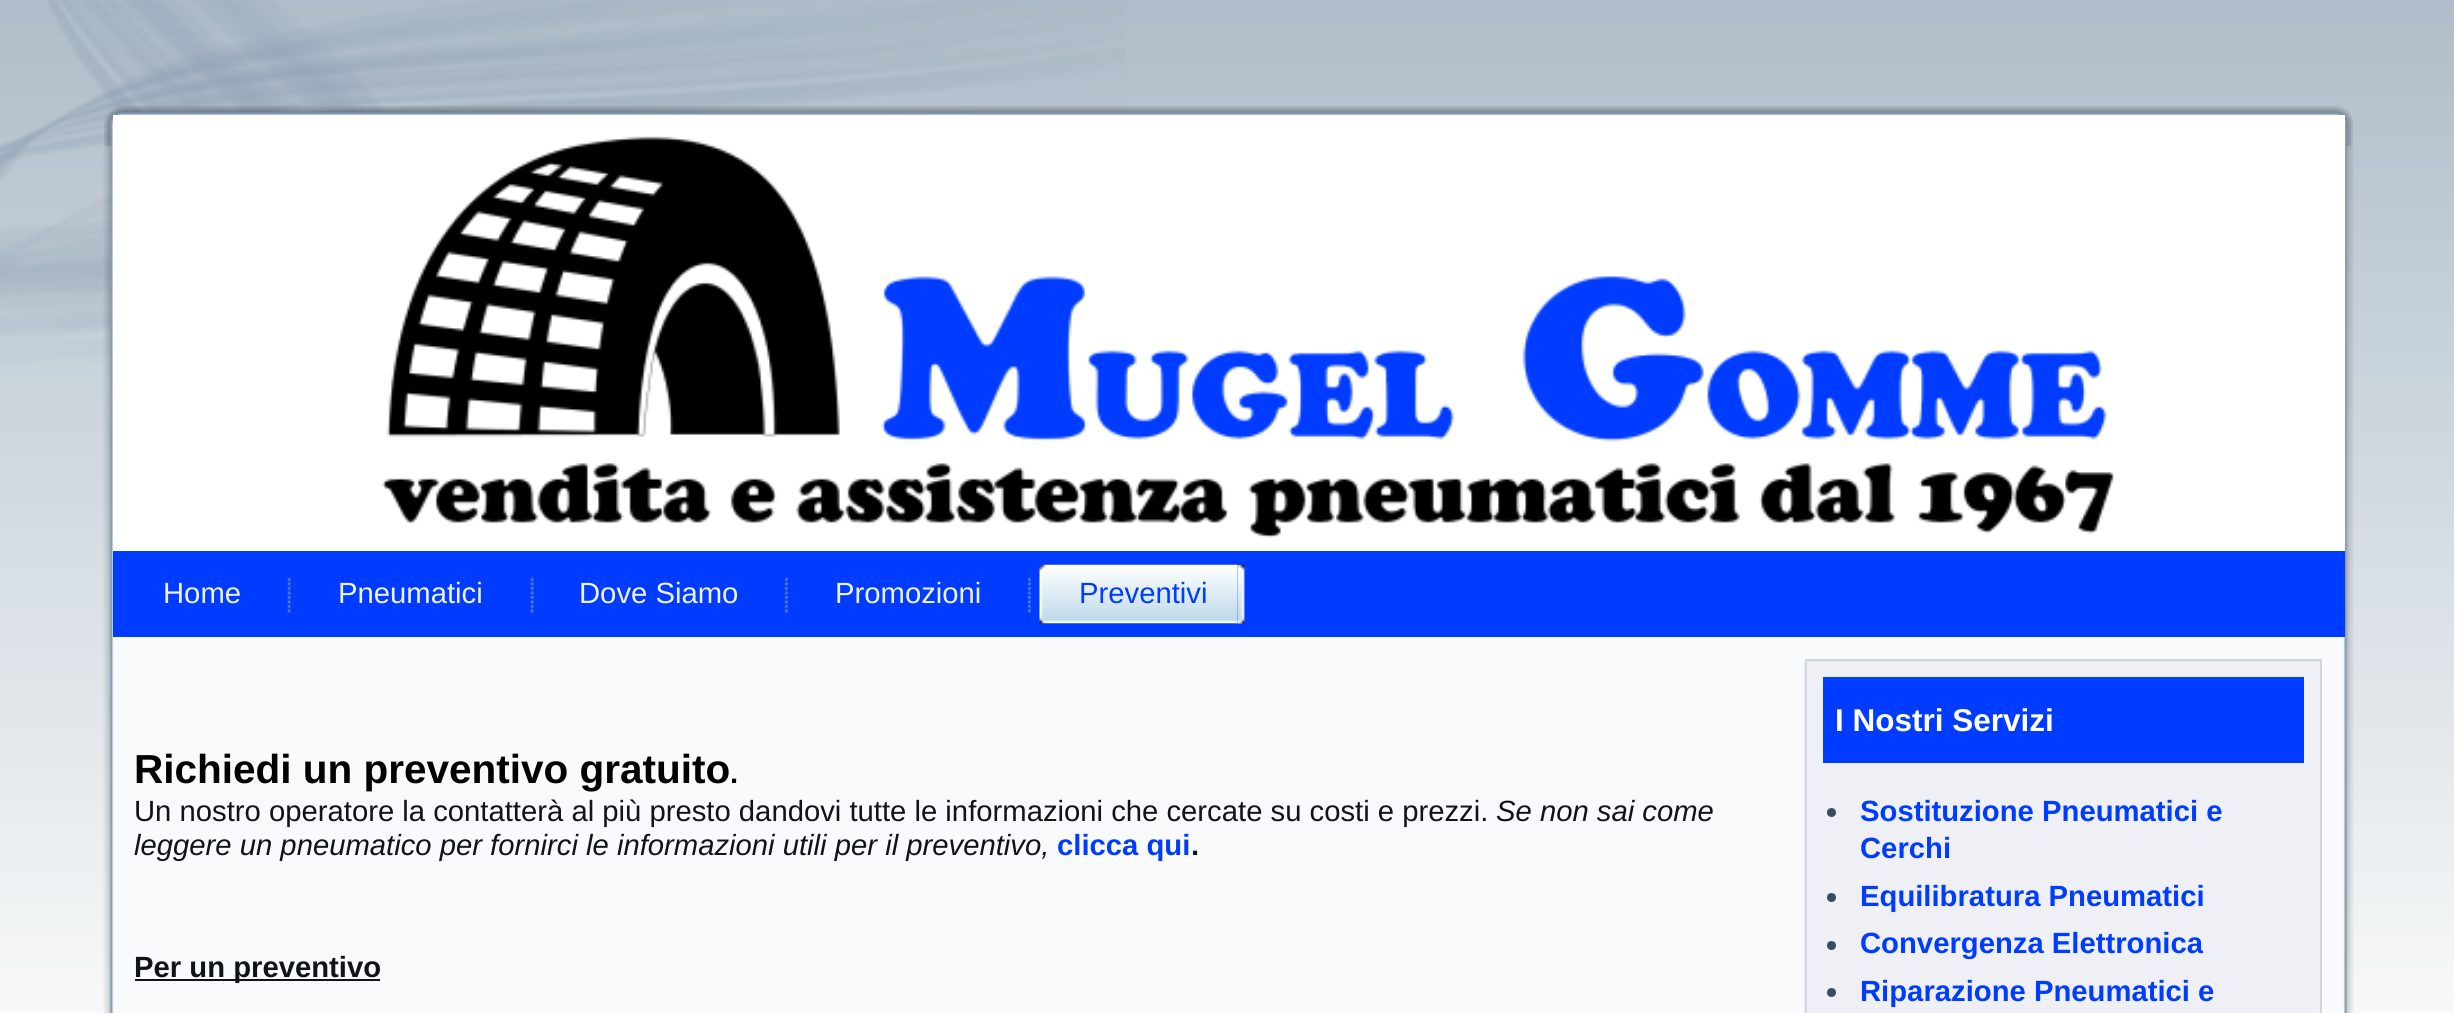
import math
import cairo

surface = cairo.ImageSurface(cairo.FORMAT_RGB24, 2454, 1013)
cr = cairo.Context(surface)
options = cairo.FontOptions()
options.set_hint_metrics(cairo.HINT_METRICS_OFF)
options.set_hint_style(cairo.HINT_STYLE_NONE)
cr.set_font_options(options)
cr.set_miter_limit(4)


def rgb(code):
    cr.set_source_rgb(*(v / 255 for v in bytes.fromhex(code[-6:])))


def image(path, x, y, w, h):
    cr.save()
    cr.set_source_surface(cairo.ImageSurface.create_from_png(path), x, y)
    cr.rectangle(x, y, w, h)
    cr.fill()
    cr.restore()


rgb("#ffffff")
cr.paint()
image("img/1.png", 0, 0, 2454, 1013)
image("img/2.png", 0, 0, 1126, 362)
image("img/3.png", 104, 106, 2209, 41)
image("img/4.png", 104, 106, 2209, 41)
image("img/9.png", 2313, 146, 41, 867)
image("img/5.png", 2313, 106, 40, 41)
image("img/6.png", 2313, 106, 40, 41)
image("img/8.png", 103, 146, 2210, 867)
rgb("#ffffff")
cr.rectangle(113, 115, 2232, 436)
cr.fill()
image("img/7.png", 382, 136, 1732, 403)
rgb("#003cff")
cr.rectangle(113, 551, 2232, 86)
cr.fill()
image("img/10.png", 287, 577, 4, 36)
image("img/10.png", 530, 577, 4, 36)
image("img/11.png", 784, 577, 4, 36)
image("img/11.png", 1027, 577, 4, 36)
image("img/12.png", 1039, 564, 199, 60)
image("img/13.png", 1236, 565, 9, 59)
rgb("#0f1419")
cr.rectangle(135, 979, 245, 2)
cr.fill()
image("img/14.png", 1804, 659, 516, 3)
image("img/15.png", 1805, 659, 516, 3)
image("img/16.png", 1804, 661, 516, 352)
image("img/17.png", 2320, 661, 2, 352)
cr.set_source_rgba(0.808, 0.843, 0.878, 0.88)
cr.rectangle(2319, 659, 3, 3)
cr.fill()
rgb("#cfd8e0")
cr.rectangle(2321, 660, 1, 1)
cr.fill()
rgb("#003cff")
cr.rectangle(1823, 677, 481, 86)
cr.fill()
rgb("#394d60")
cr.arc(1831.5, 812.5, 4.5, 0, 2 * math.pi)
cr.fill()
cr.arc(1831.5, 897.5, 4.5, 0, 2 * math.pi)
cr.fill()
cr.arc(1831.5, 945.5, 4.5, 0, 2 * math.pi)
cr.fill()
cr.arc(1831.5, 992.5, 4.5, 0, 2 * math.pi)
cr.fill()
cr.select_font_face("Liberation Sans")
cr.set_font_size(29.25)
rgb("#eff2f5")
for x, y, s in [
    (163, 603, "Home"),
    (338, 603, "Pneumatici"),
    (579, 603, "Dove Siamo"),
    (835, 603, "Promozioni"),
]:
    cr.move_to(x, y)
    cr.show_text(s)
rgb("#003cff")
cr.move_to(1079, 603)
cr.show_text("Preventivi")
cr.select_font_face("Liberation Sans", cairo.FONT_SLANT_NORMAL, cairo.FONT_WEIGHT_BOLD)
cr.set_font_size(40.5)
rgb("#000000")
cr.move_to(134, 783)
cr.show_text("Richiedi un preventivo gratuito")
cr.set_font_size(29.25)
cr.move_to(730, 783)
cr.show_text(".")
cr.select_font_face("Liberation Sans")
rgb("#0f1419")
cr.move_to(134, 821)
cr.show_text("Un nostro operatore la contatterà al più presto dandovi tutte le informazioni che cercate su costi e prezzi.")
cr.select_font_face("Liberation Sans", cairo.FONT_SLANT_ITALIC)
cr.move_to(1496, 821)
cr.show_text("Se non sai come")
cr.move_to(134, 855)
cr.show_text("leggere un pneumatico per fornirci le informazioni utili per il preventivo,")
cr.select_font_face("Liberation Sans", cairo.FONT_SLANT_NORMAL, cairo.FONT_WEIGHT_BOLD)
rgb("#003cff")
cr.move_to(1057, 855)
cr.show_text("clicca qui")
rgb("#0f1419")
cr.move_to(1191, 855)
cr.show_text(".")
cr.move_to(134, 977)
cr.show_text("Per un preventivo")
cr.set_font_size(31.5)
rgb("#ffffff")
cr.move_to(1835, 731)
cr.show_text("I Nostri Servizi")
cr.set_font_size(29.25)
rgb("#003cff")
for x, y, s in [
    (1860, 821, "Sostituzione Pneumatici e"),
    (1860, 858, "Cerchi"),
    (1860, 906, "Equilibratura Pneumatici"),
    (1860, 953, "Convergenza Elettronica"),
    (1860, 1001, "Riparazione Pneumatici e"),
]:
    cr.move_to(x, y)
    cr.show_text(s)
surface.write_to_png("page.png")
